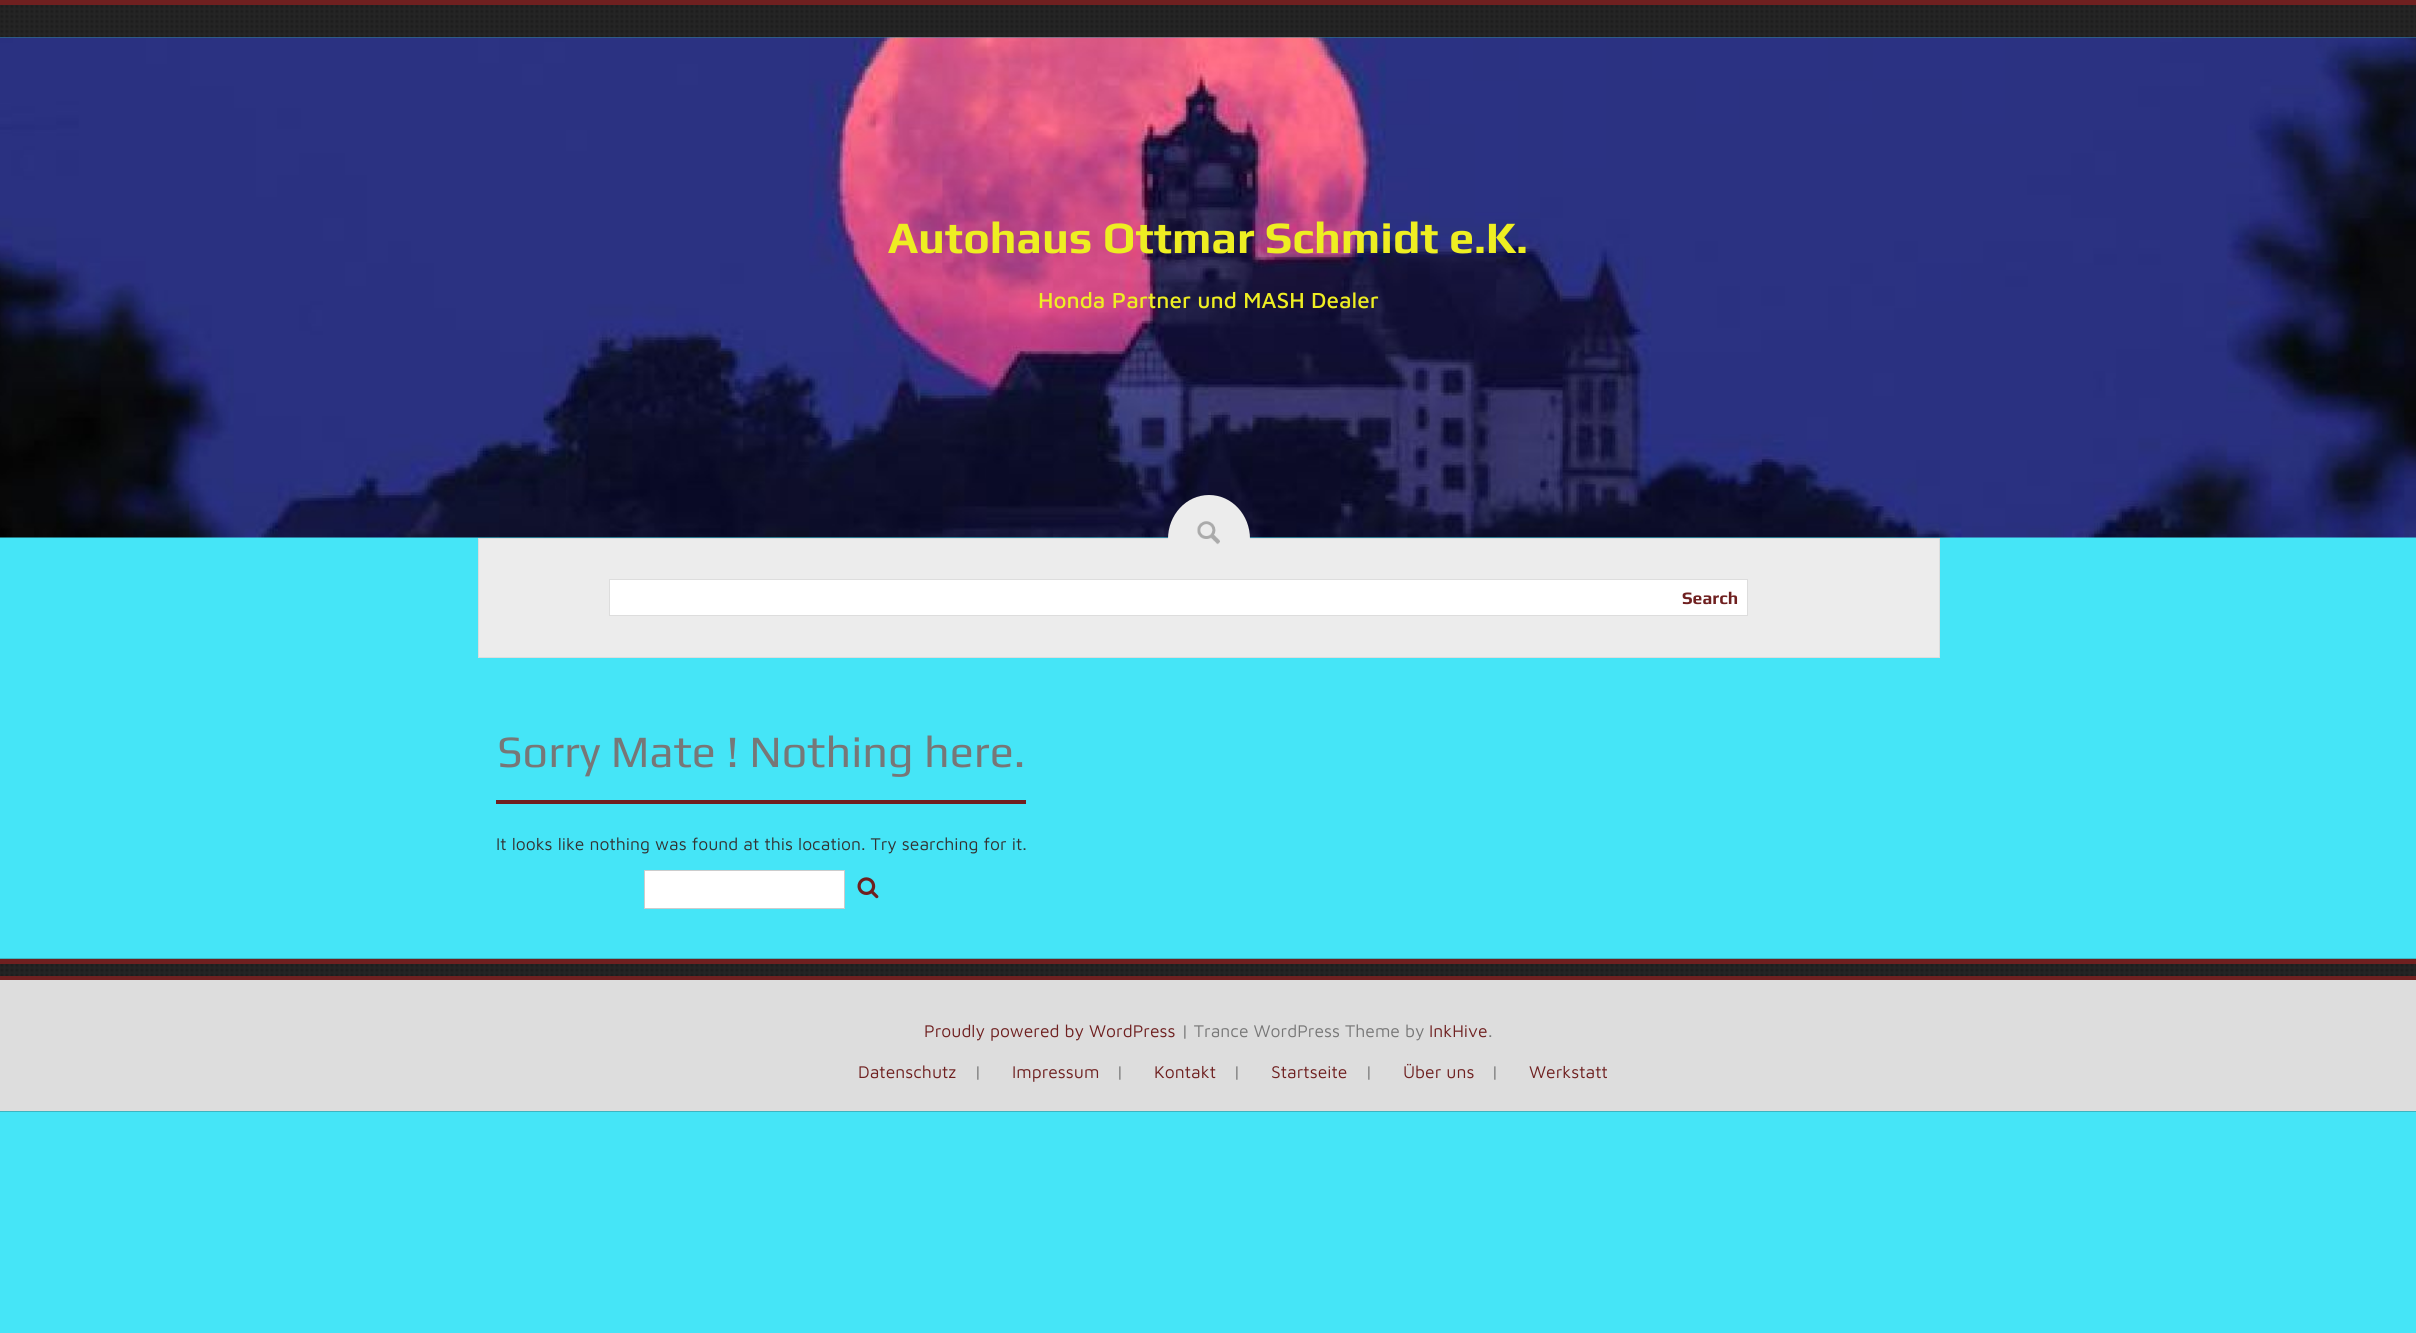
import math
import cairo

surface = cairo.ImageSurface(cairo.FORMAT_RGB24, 2416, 1333)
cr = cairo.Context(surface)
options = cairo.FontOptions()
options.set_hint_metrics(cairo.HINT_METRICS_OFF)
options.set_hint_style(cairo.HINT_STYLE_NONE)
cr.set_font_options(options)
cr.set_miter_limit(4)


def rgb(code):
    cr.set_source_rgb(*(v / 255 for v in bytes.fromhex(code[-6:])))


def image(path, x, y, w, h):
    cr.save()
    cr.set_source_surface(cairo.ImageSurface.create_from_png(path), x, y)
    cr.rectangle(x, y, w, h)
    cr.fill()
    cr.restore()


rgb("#45e5f7")
cr.paint()
image("img/1.png", 0, 5, 2416, 33)
rgb("#6f2020")
cr.rectangle(0, 0, 2416, 5)
cr.fill()
image("img/2.png", 0, 37, 2416, 501)
rgb("#ececec")
cr.rectangle(478.5, 538.5, 1461, 119)
cr.fill_preserve()
rgb("#dddddd")
cr.set_line_width(1)
cr.stroke()
rgb("#ececec")
cr.new_path()
cr.move_to(1209, 495)
cr.curve_to(1232, 495, 1250, 515, 1250, 539)
cr.line_to(1250, 584)
cr.line_to(1168, 584)
cr.line_to(1168, 539)
cr.curve_to(1168, 515, 1186, 495, 1209, 495)
cr.close_path()
cr.fill()
image("img/3.png", 1197, 521, 23, 24)
rgb("#ffffff")
cr.rectangle(609.5, 579.5, 1138, 36)
cr.fill_preserve()
rgb("#dddddd")
cr.stroke()
rgb("#6f2020")
cr.rectangle(496, 800, 530, 4)
cr.fill()
rgb("#ffffff")
cr.rectangle(644.5, 870.5, 200, 38)
cr.fill_preserve()
rgb("#cccccc")
cr.stroke()
image("img/4.png", 857, 877, 22, 22)
image("img/5.png", 0, 958, 2416, 154)
for x, y, w, h, color in [
    (0, 959, 2416, 5, "#6f2020"),
    (0, 980, 2416, 131, "#dddddd"),
    (0, 976, 2416, 4, "#6f2020"),
]:
    rgb(color)
    cr.rectangle(x, y, w, h)
    cr.fill()
cr.select_font_face("Play", cairo.FONT_SLANT_NORMAL, cairo.FONT_WEIGHT_BOLD)
cr.set_font_size(45)
rgb("#eeee22")
cr.move_to(888, 253)
cr.show_text("Autohaus Ottmar Schmidt e.K.")
cr.select_font_face("Maven Pro Medium")
cr.set_font_size(22.5)
cr.move_to(1038, 308)
cr.show_text("Honda Partner und MASH Dealer")
cr.select_font_face("Play", cairo.FONT_SLANT_NORMAL, cairo.FONT_WEIGHT_BOLD)
cr.set_font_size(17.5)
rgb("#6f2020")
cr.move_to(1682, 604)
cr.show_text("Search")
cr.select_font_face("Play")
cr.set_font_size(45)
rgb("#777777")
cr.move_to(497, 767)
cr.show_text("Sorry Mate ! Nothing here.")
cr.select_font_face("Maven Pro")
cr.set_font_size(17.5)
rgb("#333333")
cr.move_to(496, 850)
cr.show_text("It looks like nothing was found at this location. Try searching for it.")
rgb("#6f2020")
cr.move_to(924, 1037)
cr.show_text("Proudly powered by WordPress")
rgb("#777777")
cr.move_to(1181, 1037)
cr.show_text("| Trance WordPress Theme by")
rgb("#6f2020")
cr.move_to(1429, 1037)
cr.show_text("InkHive")
rgb("#777777")
cr.move_to(1488, 1037)
cr.show_text(".")
rgb("#6f2020")
cr.move_to(858, 1078)
cr.show_text("Datenschutz")
rgb("#777777")
cr.move_to(974, 1078)
cr.show_text("|")
rgb("#6f2020")
cr.move_to(1012, 1078)
cr.show_text("Impressum")
rgb("#777777")
cr.move_to(1116, 1078)
cr.show_text("|")
rgb("#6f2020")
cr.move_to(1154, 1078)
cr.show_text("Kontakt")
rgb("#777777")
cr.move_to(1233, 1078)
cr.show_text("|")
rgb("#6f2020")
cr.move_to(1271, 1078)
cr.show_text("Startseite")
rgb("#777777")
cr.move_to(1365, 1078)
cr.show_text("|")
rgb("#6f2020")
cr.move_to(1403, 1078)
cr.show_text("Über uns")
rgb("#777777")
cr.move_to(1491, 1078)
cr.show_text("|")
rgb("#6f2020")
cr.move_to(1529, 1078)
cr.show_text("Werkstatt")
surface.write_to_png("page.png")
